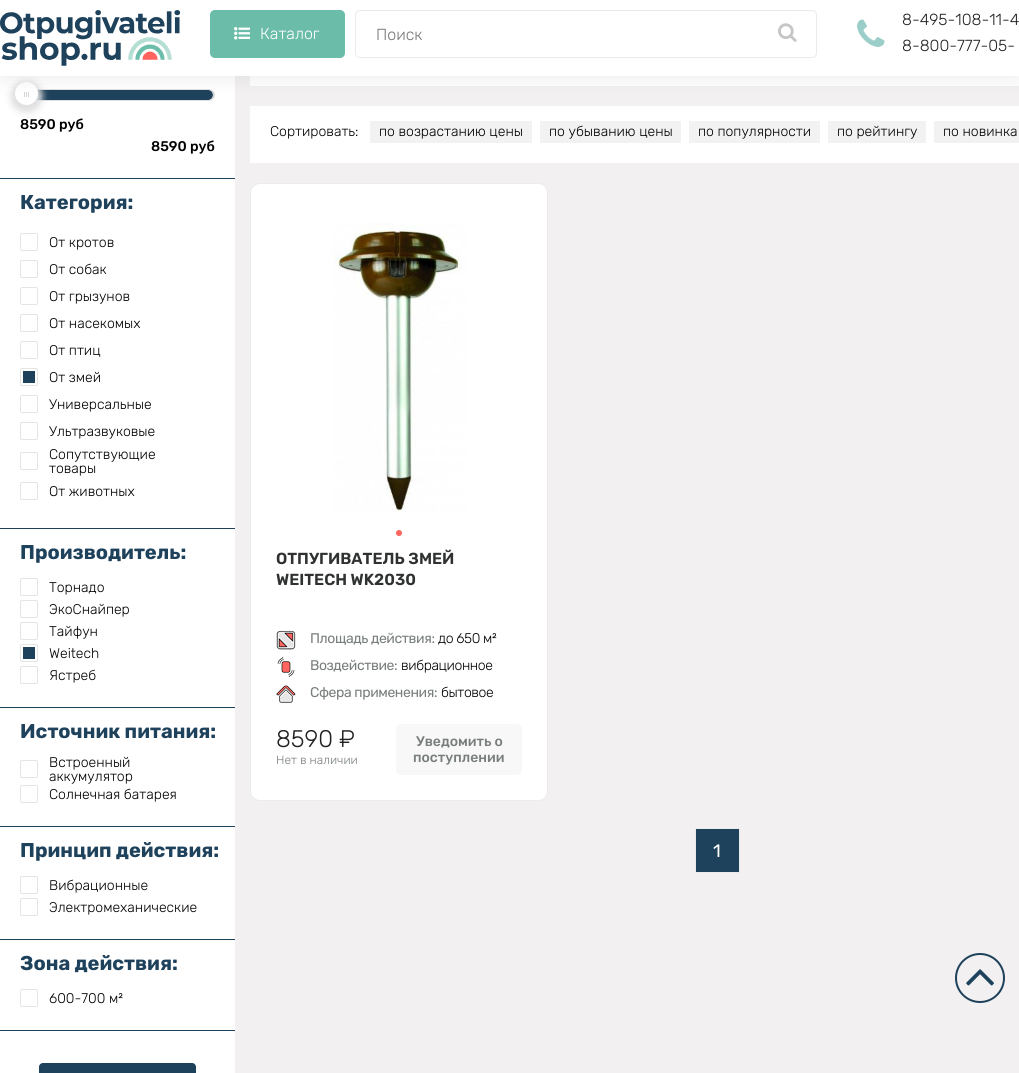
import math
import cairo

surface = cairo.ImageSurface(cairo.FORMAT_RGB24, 1019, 1073)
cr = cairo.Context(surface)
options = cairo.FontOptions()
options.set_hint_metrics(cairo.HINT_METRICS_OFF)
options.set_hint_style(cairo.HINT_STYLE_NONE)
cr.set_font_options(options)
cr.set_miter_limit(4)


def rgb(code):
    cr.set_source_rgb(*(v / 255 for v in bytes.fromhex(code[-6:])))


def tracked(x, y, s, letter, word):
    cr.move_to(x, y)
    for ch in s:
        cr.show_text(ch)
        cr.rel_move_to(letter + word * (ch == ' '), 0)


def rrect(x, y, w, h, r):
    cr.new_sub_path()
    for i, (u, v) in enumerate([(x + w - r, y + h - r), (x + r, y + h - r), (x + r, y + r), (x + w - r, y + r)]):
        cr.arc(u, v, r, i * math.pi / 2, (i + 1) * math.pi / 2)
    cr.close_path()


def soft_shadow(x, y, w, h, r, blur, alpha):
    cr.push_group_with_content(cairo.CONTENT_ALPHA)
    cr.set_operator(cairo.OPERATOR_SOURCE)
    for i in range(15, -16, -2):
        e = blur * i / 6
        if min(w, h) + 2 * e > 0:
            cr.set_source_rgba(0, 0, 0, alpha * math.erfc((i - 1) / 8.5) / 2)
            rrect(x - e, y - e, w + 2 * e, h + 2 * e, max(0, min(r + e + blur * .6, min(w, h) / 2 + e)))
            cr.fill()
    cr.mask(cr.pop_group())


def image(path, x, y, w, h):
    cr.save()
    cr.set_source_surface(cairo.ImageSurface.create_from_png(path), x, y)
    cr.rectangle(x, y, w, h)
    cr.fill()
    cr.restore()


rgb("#f2f0f0")
cr.paint()
rgb("#ffffff")
cr.rectangle(0, 76, 235, 997)
cr.fill()
rgb("#1e415c")
cr.new_path()
cr.move_to(26, 90)
cr.line_to(209, 90)
cr.curve_to(211, 90, 213, 92, 213, 95)
cr.curve_to(213, 98, 211, 100, 209, 100)
cr.line_to(26, 100)
cr.curve_to(23, 100, 21, 98, 21, 95)
cr.curve_to(21, 92, 23, 90, 26, 90)
cr.close_path()
cr.fill()
rgb("#dedede")
cr.new_path()
cr.move_to(26, 89)
cr.curve_to(24, 89, 23, 90, 22, 91)
cr.curve_to(23, 90, 25, 90, 26, 90)
cr.line_to(209, 90)
cr.line_to(211, 91)
cr.line_to(212, 90)
cr.line_to(209, 89)
cr.close_path()
cr.fill()
rgb("#d2d2d2")
cr.new_path()
cr.move_to(212.5, 90.5)
cr.curve_to(215.5, 93, 215.5, 97, 212.5, 99.5)
cr.line_to(211, 99)
cr.curve_to(213.5, 97, 213.5, 93, 211, 91)
cr.close_path()
cr.fill()
rgb("#dedede")
cr.new_path()
cr.move_to(26, 101)
cr.line_to(209, 101)
cr.line_to(212, 100)
cr.line_to(211, 99)
cr.line_to(209, 100)
cr.line_to(26, 100)
cr.curve_to(25, 100, 23, 100, 22, 99)
cr.curve_to(23, 100, 24, 101, 26, 101)
cr.close_path()
cr.fill()
rgb("#dfdfdf")
soft_shadow(13, 83, 27, 27, 13.5, 4, 1)
soft_shadow(13, 83, 27, 27, 13.5, 4, 1)
rgb("#ffffff")
cr.arc(26.5, 93.5, 11.5, 0, 2 * math.pi)
cr.fill()
image("img/5.png", 24, 92, 5, 5)
cr.rectangle(250, 76, 769, 10)
cr.fill()
cr.rectangle(250, 106, 769, 57)
cr.fill()
rgb("#000000")
soft_shadow(0, 4, 1019, 76, 0, 10, 0.07)
rgb("#ffffff")
cr.rectangle(0, 0, 1019, 76)
cr.fill()
image("img/1.png", 0, 10, 180, 56)
rgb("#6bbda9")
rrect(210, 10, 135, 48, 5)
cr.fill()
image("img/2.png", 234, 27, 16, 13)
rrect(355.5, 10.5, 461, 47, 4.5)
rgb("#ebebeb")
cr.set_line_width(1)
cr.stroke()
image("img/3.png", 778, 23, 19, 19)
image("img/4.png", 857, 19, 28, 28)
rgb("#1e415c")
cr.rectangle(0, 178, 235, 1)
cr.fill()
cr.rectangle(0, 528, 235, 1)
cr.fill()
rrect(20.5, 233.5, 17, 17, 1.5)
rgb("#e4e4e4")
cr.stroke()
rrect(20.5, 260.5, 17, 17, 1.5)
cr.stroke()
rrect(20.5, 287.5, 17, 17, 1.5)
cr.stroke()
rrect(20.5, 314.5, 17, 17, 1.5)
cr.stroke()
rrect(20.5, 341.5, 17, 17, 1.5)
cr.stroke()
rrect(20.5, 368.5, 17, 17, 1.5)
cr.stroke()
rgb("#1e415c")
cr.rectangle(23, 371, 12, 12)
cr.fill()
rrect(20.5, 395.5, 17, 17, 1.5)
rgb("#e4e4e4")
cr.stroke()
rrect(20.5, 422.5, 17, 17, 1.5)
cr.stroke()
rrect(20.5, 452.5, 17, 17, 1.5)
cr.stroke()
rrect(20.5, 482.5, 17, 17, 1.5)
cr.stroke()
rgb("#1e415c")
cr.rectangle(0, 707, 235, 1)
cr.fill()
rrect(20.5, 578.5, 17, 17, 1.5)
rgb("#e4e4e4")
cr.stroke()
rrect(20.5, 600.5, 17, 17, 1.5)
cr.stroke()
rrect(20.5, 622.5, 17, 17, 1.5)
cr.stroke()
rrect(20.5, 644.5, 17, 17, 1.5)
cr.stroke()
rgb("#1e415c")
cr.rectangle(23, 647, 12, 12)
cr.fill()
rrect(20.5, 666.5, 17, 17, 1.5)
rgb("#e4e4e4")
cr.stroke()
rgb("#1e415c")
cr.rectangle(0, 826, 235, 1)
cr.fill()
rrect(20.5, 760.5, 17, 17, 1.5)
rgb("#e4e4e4")
cr.stroke()
rrect(20.5, 785.5, 17, 17, 1.5)
cr.stroke()
rgb("#1e415c")
cr.rectangle(0, 939, 235, 1)
cr.fill()
rrect(20.5, 876.5, 17, 17, 1.5)
rgb("#e4e4e4")
cr.stroke()
rrect(20.5, 898.5, 17, 17, 1.5)
cr.stroke()
rgb("#1e415c")
cr.rectangle(0, 1030, 235, 1)
cr.fill()
rrect(20.5, 989.5, 17, 17, 1.5)
rgb("#e4e4e4")
cr.stroke()
rgb("#1e415c")
rrect(39, 1063, 157, 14, 4)
cr.fill()
for x, y, w, h, color in [
    (370, 121, 162, 22, "#f2f2f2"),
    (540, 121, 141, 22, "#f2f2f2"),
    (689, 121, 131, 22, "#f2f2f2"),
    (828, 121, 98, 22, "#f2f2f2"),
    (934, 121, 85, 22, "#f2f2f2"),
]:
    rgb(color)
    cr.rectangle(x, y, w, h)
    cr.fill()
rgb("#ffffff")
rrect(250.5, 183.5, 297, 617, 9.5)
cr.fill_preserve()
rgb("#ececec")
cr.stroke()
image("img/6.png", 333, 223, 134, 289)
rgb("#ff645f")
cr.arc(399, 533, 3, 0, 2 * math.pi)
cr.fill()
image("img/7.png", 276, 630, 20, 20)
image("img/8.png", 277, 657, 18, 20)
image("img/9.png", 276, 685, 20, 18)
rgb("#f8f8f8")
rrect(396, 724, 126, 51, 5)
cr.fill()
rgb("#1e415c")
cr.rectangle(695.5, 828.5, 44, 44)
cr.fill_preserve()
rgb("#ebebeb")
cr.stroke()
cr.arc(980, 978, 24, 0, 2 * math.pi)
rgb("#1e415c")
cr.set_line_width(2)
cr.stroke()
image("img/10.png", 966, 969, 28, 17)
cr.select_font_face("Rubik Light")
cr.set_font_size(16)
rgb("#ffffff")
cr.move_to(260, 39)
cr.show_text("Каталог")
rgb("#757575")
cr.move_to(376, 40)
cr.show_text("Поиск")
rgb("#222222")
cr.move_to(902, 25)
cr.show_text("8-495-108-11-4")
cr.move_to(902, 51)
cr.show_text("8-800-777-05-")
cr.select_font_face("Rubik Medium")
cr.set_font_size(14)
rgb("#000000")
cr.move_to(20, 129)
cr.show_text("8590 руб")
cr.move_to(151, 151)
cr.show_text("8590 руб")
cr.select_font_face("Rubik", cairo.FONT_SLANT_NORMAL, cairo.FONT_WEIGHT_BOLD)
cr.set_font_size(20)
rgb("#1e415c")
cr.move_to(20, 209)
cr.show_text("Категория:")
cr.select_font_face("Rubik Light")
cr.set_font_size(14)
rgb("#000000")
for x, y, s in [
    (49, 247, "От кротов"),
    (49, 274, "От собак"),
    (49, 301, "От грызунов"),
    (49, 328, "От насекомых"),
    (49, 355, "От птиц"),
    (49, 382, "От змей"),
    (49, 409, "Универсальные"),
    (49, 436, "Ультразвуковые"),
    (49, 459, "Сопутствующие"),
    (49, 473, "товары"),
    (49, 496, "От животных"),
]:
    cr.move_to(x, y)
    cr.show_text(s)
cr.select_font_face("Rubik", cairo.FONT_SLANT_NORMAL, cairo.FONT_WEIGHT_BOLD)
cr.set_font_size(20)
rgb("#1e415c")
cr.move_to(20, 559)
cr.show_text("Производитель:")
cr.select_font_face("Rubik Light")
cr.set_font_size(14)
rgb("#000000")
for x, y, s in [
    (49, 592, "Торнадо"),
    (49, 614, "ЭкоСнайпер"),
    (49, 636, "Тайфун"),
    (49, 658, "Weitech"),
    (49, 680, "Ястреб"),
]:
    cr.move_to(x, y)
    cr.show_text(s)
cr.select_font_face("Rubik", cairo.FONT_SLANT_NORMAL, cairo.FONT_WEIGHT_BOLD)
cr.set_font_size(20)
rgb("#1e415c")
cr.move_to(20, 738)
cr.show_text("Источник питания:")
cr.select_font_face("Rubik Light")
cr.set_font_size(14)
rgb("#000000")
for x, y, s in [
    (49, 767, "Встроенный"),
    (49, 781, "аккумулятор"),
    (49, 799, "Солнечная батарея"),
]:
    cr.move_to(x, y)
    cr.show_text(s)
cr.select_font_face("Rubik", cairo.FONT_SLANT_NORMAL, cairo.FONT_WEIGHT_BOLD)
cr.set_font_size(20)
rgb("#1e415c")
cr.move_to(20, 857)
cr.show_text("Принцип действия:")
cr.select_font_face("Rubik Light")
cr.set_font_size(14)
rgb("#000000")
cr.move_to(49, 890)
cr.show_text("Вибрационные")
cr.move_to(49, 912)
cr.show_text("Электромеханические")
cr.select_font_face("Rubik", cairo.FONT_SLANT_NORMAL, cairo.FONT_WEIGHT_BOLD)
cr.set_font_size(20)
rgb("#1e415c")
cr.move_to(20, 970)
cr.show_text("Зона действия:")
cr.select_font_face("Rubik Light")
cr.set_font_size(14)
rgb("#000000")
for x, y, s in [
    (49, 1003, "600-700 м²"),
    (270, 136, "Сортировать:"),
    (379, 136, "по возрастанию цены"),
    (549, 136, "по убыванию цены"),
    (698, 136, "по популярности"),
    (837, 136, "по рейтингу"),
    (943, 136, "по новинка"),
]:
    cr.move_to(x, y)
    cr.show_text(s)
cr.select_font_face("Rubik SemiBold")
cr.set_font_size(16)
rgb("#303232")
cr.move_to(276, 564)
cr.show_text("ОТПУГИВАТЕЛЬ ЗМЕЙ")
cr.move_to(276, 585)
cr.show_text("WEITECH WK2030")
cr.select_font_face("Rubik")
cr.set_font_size(14)
rgb("#787e7d")
tracked(310, 643, "Площадь действия:", -0.4, 0)
cr.select_font_face("Rubik Light")
rgb("#000000")
tracked(438, 643, "до 650 м²", -0.4, 0)
cr.select_font_face("Rubik")
rgb("#787e7d")
tracked(310, 670, "Воздействие:", -0.4, 0)
cr.select_font_face("Rubik Light")
rgb("#000000")
tracked(401, 670, "вибрационное", -0.4, 0)
cr.select_font_face("Rubik")
rgb("#787e7d")
tracked(310, 697, "Сфера применения:", -0.4, 0)
cr.select_font_face("Rubik Light")
rgb("#000000")
tracked(441, 697, "бытовое", -0.4, 0)
cr.set_font_size(24)
rgb("#222222")
cr.move_to(276, 747)
cr.show_text("8590 ₽")
cr.set_font_size(12)
rgb("#787e7d")
cr.move_to(276, 764)
cr.show_text("Нет в наличии")
cr.select_font_face("Rubik Medium")
cr.set_font_size(14)
cr.move_to(416, 746)
cr.show_text("Уведомить о")
cr.move_to(413, 762)
cr.show_text("поступлении")
cr.select_font_face("Rubik")
cr.set_font_size(18)
rgb("#ffffff")
cr.move_to(713, 857)
cr.show_text("1")
surface.write_to_png("page.png")
